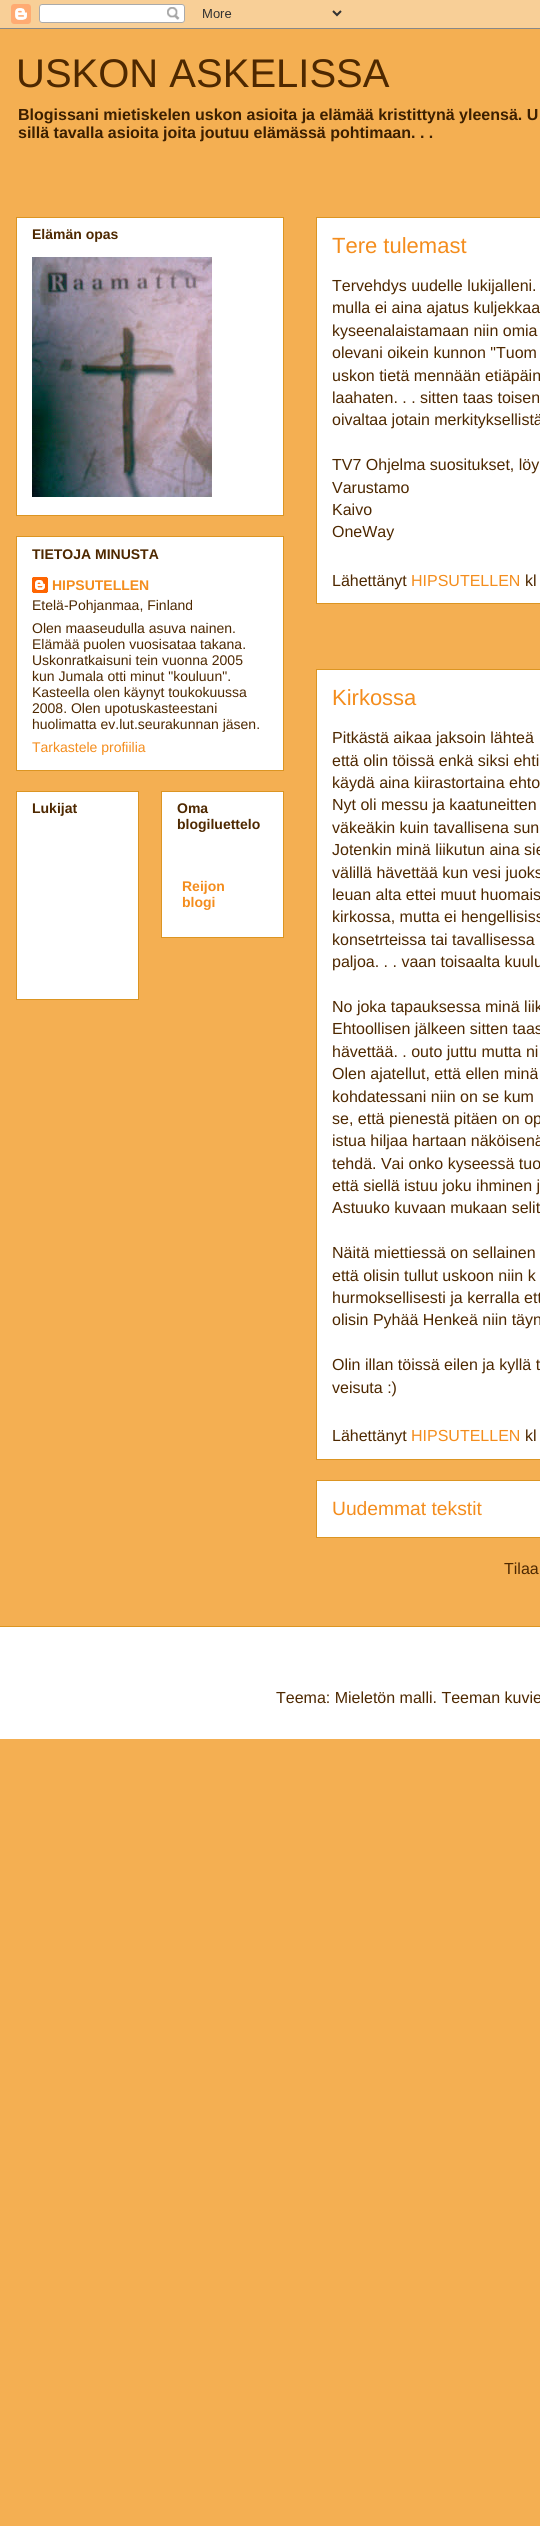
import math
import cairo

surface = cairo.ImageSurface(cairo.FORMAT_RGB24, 540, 2526)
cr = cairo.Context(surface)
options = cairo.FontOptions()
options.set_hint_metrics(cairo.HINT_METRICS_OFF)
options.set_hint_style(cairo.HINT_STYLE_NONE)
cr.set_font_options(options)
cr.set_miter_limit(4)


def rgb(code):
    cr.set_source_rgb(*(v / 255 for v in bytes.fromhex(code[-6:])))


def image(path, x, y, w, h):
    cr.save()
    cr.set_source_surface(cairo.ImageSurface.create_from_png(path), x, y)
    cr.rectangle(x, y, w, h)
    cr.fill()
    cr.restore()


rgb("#f4af52")
cr.paint()
image("img/1.png", 0, 0, 540, 29)
rgb("#ffffff")
cr.rectangle(16.5, 217.5, 267, 298)
cr.fill_preserve()
rgb("#dc9522")
cr.set_line_width(1)
cr.stroke()
image("img/2.png", 32, 257, 180, 240)
rgb("#ffffff")
cr.rectangle(16.5, 536.5, 267, 234)
cr.fill_preserve()
rgb("#dc9522")
cr.stroke()
image("img/3.png", 32, 577, 16, 16)
rgb("#ffffff")
cr.rectangle(16.5, 791.5, 122, 208)
cr.fill_preserve()
rgb("#dc9522")
cr.stroke()
rgb("#ffffff")
cr.rectangle(161.5, 791.5, 122, 146)
cr.fill_preserve()
rgb("#dc9522")
cr.stroke()
rgb("#ffffff")
cr.rectangle(316.5, 217.5, 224, 386)
cr.fill_preserve()
rgb("#dc9522")
cr.stroke()
rgb("#ffffff")
cr.rectangle(316.5, 669.5, 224, 790)
cr.fill_preserve()
rgb("#dc9522")
cr.stroke()
rgb("#ffffff")
cr.rectangle(316.5, 1480.5, 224, 57)
cr.fill_preserve()
rgb("#dc9522")
cr.stroke()
rgb("#ffffff")
cr.rectangle(0, 1627, 540, 112)
cr.fill()
rgb("#dc9522")
cr.rectangle(0, 1626, 540, 1)
cr.fill()
cr.select_font_face("Liberation Sans")
cr.set_font_size(40)
rgb("#4e2800")
cr.move_to(16, 87)
cr.show_text("USKON ASKELISSA")
cr.select_font_face("Liberation Sans", cairo.FONT_SLANT_NORMAL, cairo.FONT_WEIGHT_BOLD)
cr.set_font_size(16)
rgb("#3c1f00")
cr.move_to(18, 120)
cr.show_text("Blogissani mietiskelen uskon asioita ja elämää kristittynä yleensä. U")
cr.move_to(18, 138)
cr.show_text("sillä tavalla asioita joita joutuu elämässä pohtimaan. . .")
cr.set_font_size(14)
rgb("#4e2800")
cr.move_to(32, 239)
cr.show_text("Elämän opas")
cr.move_to(32, 559)
cr.show_text("TIETOJA MINUSTA")
rgb("#f48d1d")
cr.move_to(52, 590)
cr.show_text("HIPSUTELLEN")
cr.select_font_face("Liberation Sans")
rgb("#4e2800")
for x, y, s in [
    (32, 610, "Etelä-Pohjanmaa, Finland"),
    (32, 633, "Olen maaseudulla asuva nainen."),
    (32, 649, "Elämää puolen vuosisataa takana."),
    (32, 665, "Uskonratkaisuni tein vuonna 2005"),
    (32, 681, "kun Jumala otti minut \"kouluun\"."),
    (32, 697, "Kasteella olen käynyt toukokuussa"),
    (32, 713, "2008. Olen upotuskasteestani"),
    (32, 729, "huolimatta ev.lut.seurakunnan jäsen."),
]:
    cr.move_to(x, y)
    cr.show_text(s)
rgb("#f48d1d")
cr.move_to(32, 752)
cr.show_text("Tarkastele profiilia")
cr.select_font_face("Liberation Sans", cairo.FONT_SLANT_NORMAL, cairo.FONT_WEIGHT_BOLD)
rgb("#4e2800")
for x, y, s in [
    (32, 813, "Lukijat"),
    (177, 813, "Oma"),
    (177, 829, "blogiluettelo"),
]:
    cr.move_to(x, y)
    cr.show_text(s)
rgb("#f48d1d")
cr.move_to(182, 891)
cr.show_text("Reijon")
cr.move_to(182, 907)
cr.show_text("blogi")
cr.select_font_face("Liberation Sans")
cr.set_font_size(22)
cr.move_to(332, 253)
cr.show_text("Tere tulemast")
cr.set_font_size(16)
rgb("#4e2800")
for x, y, s in [
    (332, 291, "Tervehdys uudelle lukijalleni."),
    (332, 313, "mulla ei aina ajatus kuljekkaa"),
    (332, 336, "kyseenalaistamaan niin omia"),
    (332, 358, "olevani oikein kunnon \"Tuom"),
    (332, 381, "uskon tietä mennään etiäpäin"),
    (332, 403, "laahaten. . . sitten taas toisen"),
    (332, 425, "oivaltaa jotain merkityksellistä"),
    (332, 470, "TV7 Ohjelma suositukset, löy"),
    (332, 493, "Varustamo"),
    (332, 515, "Kaivo"),
    (332, 537, "OneWay"),
    (332, 586, "Lähettänyt"),
]:
    cr.move_to(x, y)
    cr.show_text(s)
rgb("#f48d1d")
cr.move_to(411, 586)
cr.show_text("HIPSUTELLEN")
rgb("#4e2800")
cr.move_to(525, 586)
cr.show_text("kl")
cr.set_font_size(22)
rgb("#f48d1d")
cr.move_to(332, 705)
cr.show_text("Kirkossa")
cr.set_font_size(16)
rgb("#4e2800")
for x, y, s in [
    (332, 743, "Pitkästä aikaa jaksoin lähteä"),
    (332, 766, "että olin töissä enkä siksi ehti"),
    (332, 788, "käydä aina kiirastortaina ehto"),
    (332, 810, "Nyt oli messu ja kaatuneitten"),
    (332, 833, "väkeäkin kuin tavallisena sun"),
    (332, 855, "Jotenkin minä liikutun aina sie"),
    (332, 878, "välillä hävettää kun vesi juoks"),
    (332, 900, "leuan alta ettei muut huomais"),
    (332, 922, "kirkossa, mutta ei hengellisiss"),
    (332, 945, "konsetrteissa tai tavallisessa"),
    (332, 967, "paljoa. . . vaan toisaalta kuulu"),
    (332, 1012, "No joka tapauksessa minä liik"),
    (332, 1034, "Ehtoollisen jälkeen sitten taas"),
    (332, 1057, "hävettää. . outo juttu mutta ni"),
    (332, 1079, "Olen ajatellut, että ellen minä"),
    (332, 1102, "kohdatessani niin on se kum"),
    (332, 1124, "se, että pienestä pitäen on op"),
    (332, 1146, "istua hiljaa hartaan näköisenä"),
    (332, 1169, "tehdä. Vai onko kyseessä tuo"),
    (332, 1191, "että siellä istuu joku ihminen j"),
    (332, 1213, "Astuuko kuvaan mukaan selit"),
    (332, 1258, "Näitä miettiessä on sellainen"),
    (332, 1281, "että olisin tullut uskoon niin k"),
    (332, 1303, "hurmoksellisesti ja kerralla ett"),
    (332, 1325, "olisin Pyhää Henkeä niin täyn"),
    (332, 1370, "Olin illan töissä eilen ja kyllä t"),
    (332, 1393, "veisuta :)"),
    (332, 1441, "Lähettänyt"),
]:
    cr.move_to(x, y)
    cr.show_text(s)
rgb("#f48d1d")
cr.move_to(411, 1441)
cr.show_text("HIPSUTELLEN")
rgb("#4e2800")
cr.move_to(525, 1441)
cr.show_text("kl")
cr.set_font_size(19.25)
rgb("#f48d1d")
cr.move_to(332, 1515)
cr.show_text("Uudemmat tekstit")
cr.set_font_size(16)
rgb("#4e2800")
cr.move_to(504, 1574)
cr.show_text("Tilaa")
cr.move_to(276, 1703)
cr.show_text("Teema: Mieletön malli. Teeman kuvie")
surface.write_to_png("page.png")
